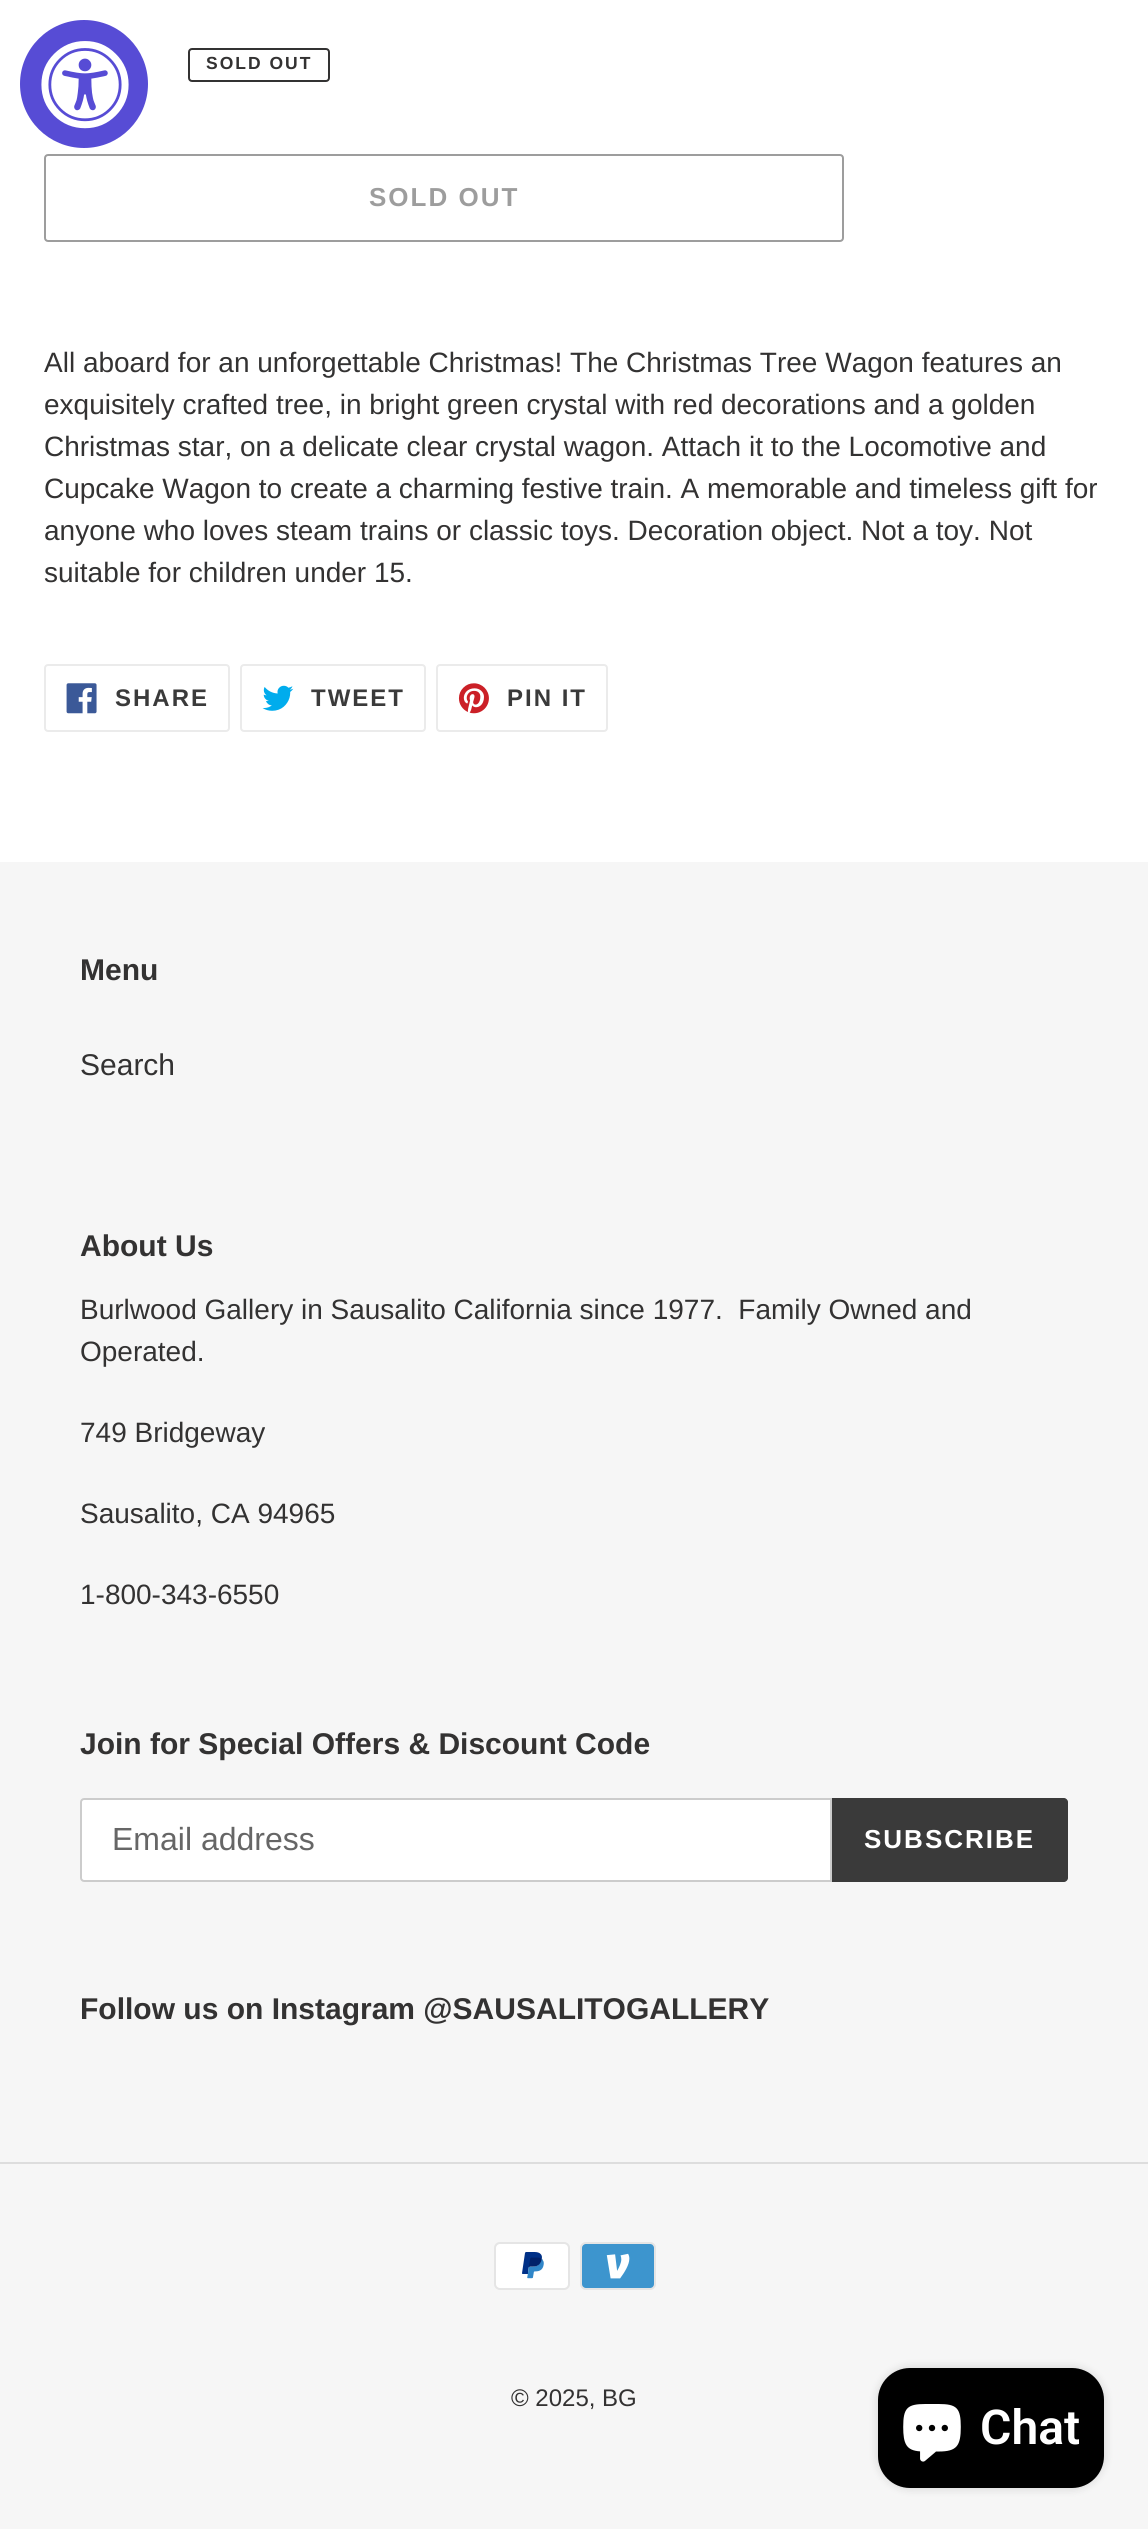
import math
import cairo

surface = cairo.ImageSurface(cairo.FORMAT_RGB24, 1148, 2529)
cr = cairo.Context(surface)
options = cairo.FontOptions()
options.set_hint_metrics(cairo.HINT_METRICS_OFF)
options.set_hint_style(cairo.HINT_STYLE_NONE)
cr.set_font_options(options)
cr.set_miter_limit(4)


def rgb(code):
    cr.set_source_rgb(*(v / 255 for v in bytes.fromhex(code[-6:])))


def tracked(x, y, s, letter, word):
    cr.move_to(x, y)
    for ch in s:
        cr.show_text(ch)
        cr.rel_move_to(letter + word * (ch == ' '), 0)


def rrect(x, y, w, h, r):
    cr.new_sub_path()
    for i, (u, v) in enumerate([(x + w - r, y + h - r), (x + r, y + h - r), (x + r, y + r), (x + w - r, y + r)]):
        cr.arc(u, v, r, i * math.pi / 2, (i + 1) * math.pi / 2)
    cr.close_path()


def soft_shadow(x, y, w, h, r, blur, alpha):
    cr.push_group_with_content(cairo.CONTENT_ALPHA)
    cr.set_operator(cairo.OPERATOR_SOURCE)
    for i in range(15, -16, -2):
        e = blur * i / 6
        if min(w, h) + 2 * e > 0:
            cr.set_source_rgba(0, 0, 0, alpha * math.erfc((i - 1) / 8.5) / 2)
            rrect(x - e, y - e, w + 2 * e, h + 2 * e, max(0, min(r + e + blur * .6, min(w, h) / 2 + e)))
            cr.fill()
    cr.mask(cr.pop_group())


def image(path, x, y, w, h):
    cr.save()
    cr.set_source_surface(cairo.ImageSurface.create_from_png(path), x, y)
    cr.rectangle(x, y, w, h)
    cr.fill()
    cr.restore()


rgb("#ffffff")
cr.paint()
rgb("#574cd5")
cr.arc(84, 84, 64, 0, 2 * math.pi)
cr.fill()
image("img/1.png", 41, 41, 88, 88)
rrect(189, 49, 140, 32, 3)
rgb("#333232")
cr.stroke()
rrect(45, 155, 798, 86, 3)
rgb("#9d9d9d")
cr.stroke()
rrect(45, 665, 184, 66, 3)
rgb("#ebebeb")
cr.stroke()
image("img/2.png", 66, 683, 31, 31)
rrect(241, 665, 184, 66, 3)
cr.stroke()
image("img/3.png", 262, 685, 32, 26)
rrect(437, 665, 170, 66, 3)
cr.stroke()
image("img/4.png", 458, 683, 31, 31)
rgb("#f6f6f6")
cr.rectangle(0, 862, 1148, 1667)
cr.fill()
rgb("#ffffff")
cr.new_path()
cr.move_to(84, 1799)
cr.line_to(831, 1799)
cr.line_to(831, 1881)
cr.line_to(84, 1881)
cr.curve_to(82.5, 1881, 81, 1879.5, 81, 1878)
cr.line_to(81, 1802)
cr.curve_to(81, 1800.5, 82.5, 1799, 84, 1799)
cr.close_path()
cr.fill_preserve()
rgb("#cccccc")
cr.stroke()
rgb("#3a3a3a")
cr.new_path()
cr.move_to(832, 1798)
cr.line_to(1064, 1798)
cr.curve_to(1066, 1798, 1068, 1800, 1068, 1802)
cr.line_to(1068, 1878)
cr.curve_to(1068, 1880, 1066, 1882, 1064, 1882)
cr.line_to(832, 1882)
cr.close_path()
cr.fill()
rgb("#dddddd")
cr.rectangle(0, 2162, 1148, 2)
cr.fill()
image("img/5.png", 494, 2242, 76, 48)
image("img/6.png", 580, 2242, 76, 48)
rgb("#000000")
soft_shadow(878, 2368, 226, 120, 32, 5, 0.15)
rgb("#000000")
rrect(878, 2368, 226, 120, 32)
cr.fill()
image("img/7.png", 903, 2404, 58, 58)
cr.select_font_face("Liberation Sans", cairo.FONT_SLANT_NORMAL, cairo.FONT_WEIGHT_BOLD)
cr.set_font_size(17.5)
rgb("#333232")
tracked(206, 69, "SOLD OUT", 2, 0)
cr.set_font_size(26)
rgb("#9d9d9d")
tracked(369, 206, "SOLD OUT", 2, 0)
cr.select_font_face("Liberation Sans")
cr.set_font_size(28)
rgb("#333232")
for x, y, s in [
    (44, 372, "All aboard for an unforgettable Christmas! The Christmas Tree Wagon features an"),
    (44, 414, "exquisitely crafted tree, in bright green crystal with red decorations and a golden"),
    (44, 456, "Christmas star, on a delicate clear crystal wagon. Attach it to the Locomotive and"),
    (44, 498, "Cupcake Wagon to create a charming festive train. A memorable and timeless gift for"),
    (44, 540, "anyone who loves steam trains or classic toys. Decoration object. Not a toy. Not"),
    (44, 582, "suitable for children under 15."),
]:
    cr.move_to(x, y)
    cr.show_text(s)
cr.select_font_face("Liberation Sans", cairo.FONT_SLANT_NORMAL, cairo.FONT_WEIGHT_BOLD)
cr.set_font_size(24)
rgb("#3a3a3a")
for x, y, s in [
    (115, 706, "SHARE"),
    (311, 706, "TWEET"),
    (507, 706, "PIN IT"),
]:
    tracked(x, y, s, 2, 0)
cr.set_font_size(30)
rgb("#333232")
cr.move_to(80, 980)
cr.show_text("Menu")
cr.select_font_face("Liberation Sans")
cr.move_to(80, 1075)
cr.show_text("Search")
cr.select_font_face("Liberation Sans", cairo.FONT_SLANT_NORMAL, cairo.FONT_WEIGHT_BOLD)
cr.move_to(80, 1256)
cr.show_text("About Us")
cr.select_font_face("Liberation Sans")
cr.set_font_size(28)
for x, y, s in [
    (80, 1319, "Burlwood Gallery in Sausalito California since 1977.  Family Owned and"),
    (80, 1361, "Operated."),
    (80, 1442, "749 Bridgeway"),
    (80, 1523, "Sausalito, CA 94965"),
    (80, 1604, "1-800-343-6550"),
]:
    cr.move_to(x, y)
    cr.show_text(s)
cr.select_font_face("Liberation Sans", cairo.FONT_SLANT_NORMAL, cairo.FONT_WEIGHT_BOLD)
cr.set_font_size(30)
cr.move_to(80, 1754)
cr.show_text("Join for Special Offers & Discount Code")
cr.select_font_face("Liberation Sans")
cr.set_font_size(32)
rgb("#666666")
cr.move_to(112, 1850)
cr.show_text("Email address")
cr.select_font_face("Liberation Sans", cairo.FONT_SLANT_NORMAL, cairo.FONT_WEIGHT_BOLD)
cr.set_font_size(26)
rgb("#ffffff")
tracked(864, 1848, "SUBSCRIBE", 2, 0)
cr.set_font_size(30)
rgb("#333232")
cr.move_to(80, 2019)
cr.show_text("Follow us on Instagram @SAUSALITOGALLERY")
cr.select_font_face("Liberation Sans")
cr.set_font_size(24)
cr.move_to(511, 2406)
cr.show_text("© 2025, BG")
cr.select_font_face("Roboto SemiBold")
cr.set_font_size(48)
rgb("#ffffff")
cr.move_to(980, 2444)
cr.show_text("Chat")
surface.write_to_png("page.png")
